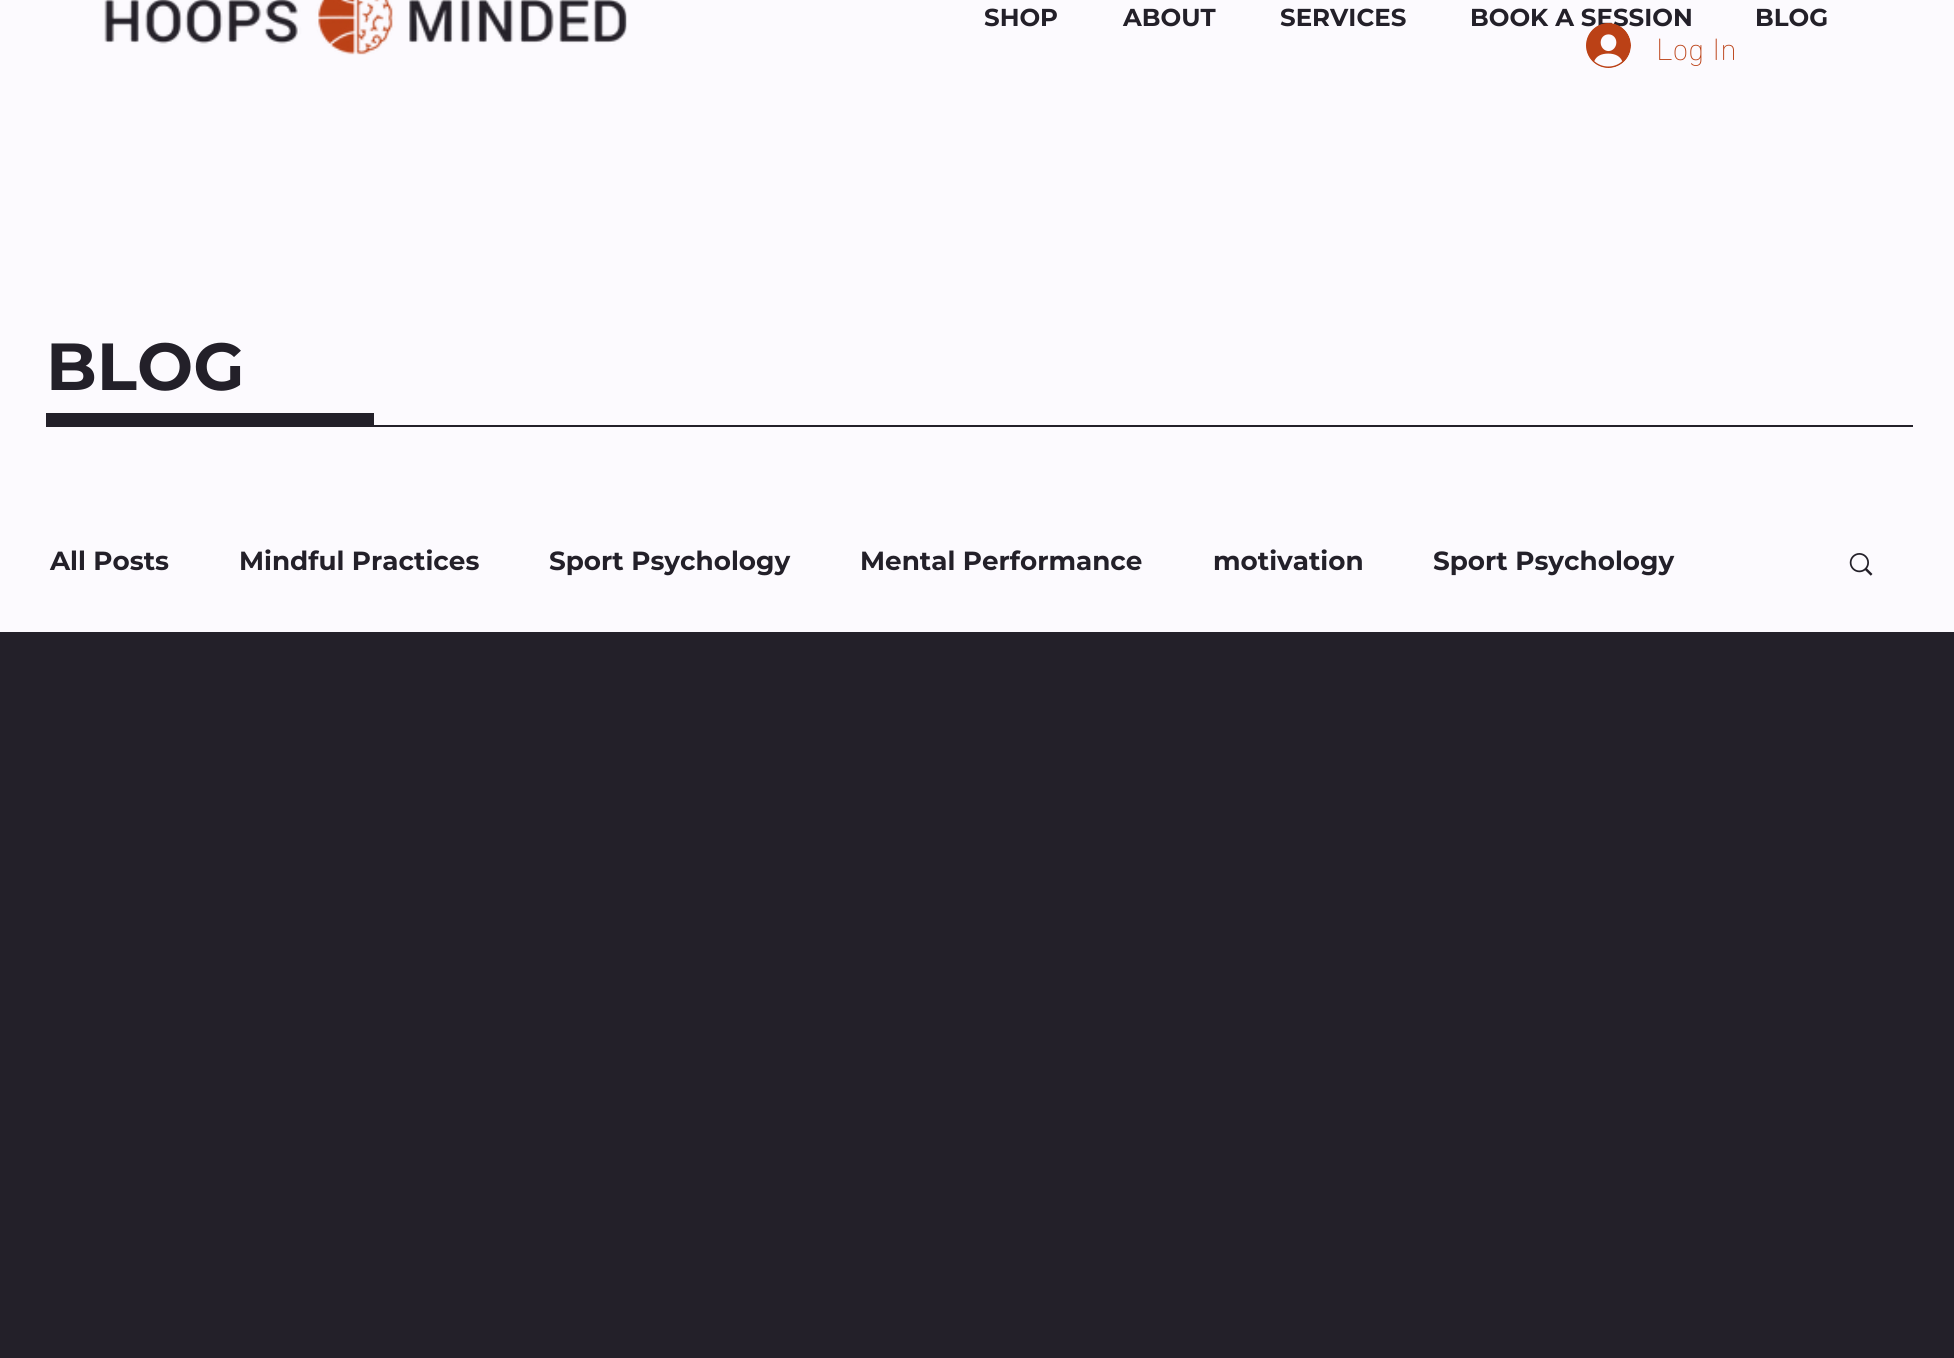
import math
import cairo

surface = cairo.ImageSurface(cairo.FORMAT_RGB24, 1954, 1358)
cr = cairo.Context(surface)
options = cairo.FontOptions()
options.set_hint_metrics(cairo.HINT_METRICS_OFF)
options.set_hint_style(cairo.HINT_STYLE_NONE)
cr.set_font_options(options)
cr.set_miter_limit(4)


def rgb(code):
    cr.set_source_rgb(*(v / 255 for v in bytes.fromhex(code[-6:])))


def image(path, x, y, w, h):
    cr.save()
    cr.set_source_surface(cairo.ImageSurface.create_from_png(path), x, y)
    cr.rectangle(x, y, w, h)
    cr.fill()
    cr.restore()


rgb("#fcfafe")
cr.paint()
image("img/1.png", 104, 0, 523, 55)
for x, y, w, h, color in [
    (46, 413, 328, 14, "#232029"),
    (374, 425, 1539, 2, "#232029"),
    (0, 632, 1954, 726, "#232029"),
]:
    rgb(color)
    cr.rectangle(x, y, w, h)
    cr.fill()
image("img/3.png", 1849, 553, 24, 23)
cr.select_font_face("Montserrat", cairo.FONT_SLANT_NORMAL, cairo.FONT_WEIGHT_BOLD)
cr.set_font_size(24.5)
for x, y, s in [
    (984, 26, "SHOP"),
    (1123, 26, "ABOUT"),
    (1280, 26, "SERVICES"),
    (1470, 26, "BOOK A SESSION"),
    (1755, 26, "BLOG"),
]:
    cr.move_to(x, y)
    cr.show_text(s)
image("img/2.png", 1586, 23, 45, 45)
cr.select_font_face("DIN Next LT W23 ExtraLight")
cr.set_font_size(31.5)
rgb("#bb4116")
cr.move_to(1656, 60)
cr.show_text("Log In")
cr.select_font_face("Montserrat", cairo.FONT_SLANT_NORMAL, cairo.FONT_WEIGHT_BOLD)
cr.set_font_size(66.5)
rgb("#232029")
cr.move_to(46, 390)
cr.show_text("BLOG")
cr.set_font_size(26.25)
for x, y, s in [
    (50, 570, "All Posts"),
    (239, 570, "Mindful Practices"),
    (549, 570, "Sport Psychology"),
    (860, 570, "Mental Performance"),
    (1213, 570, "motivation"),
    (1433, 570, "Sport Psychology"),
]:
    cr.move_to(x, y)
    cr.show_text(s)
surface.write_to_png("page.png")
